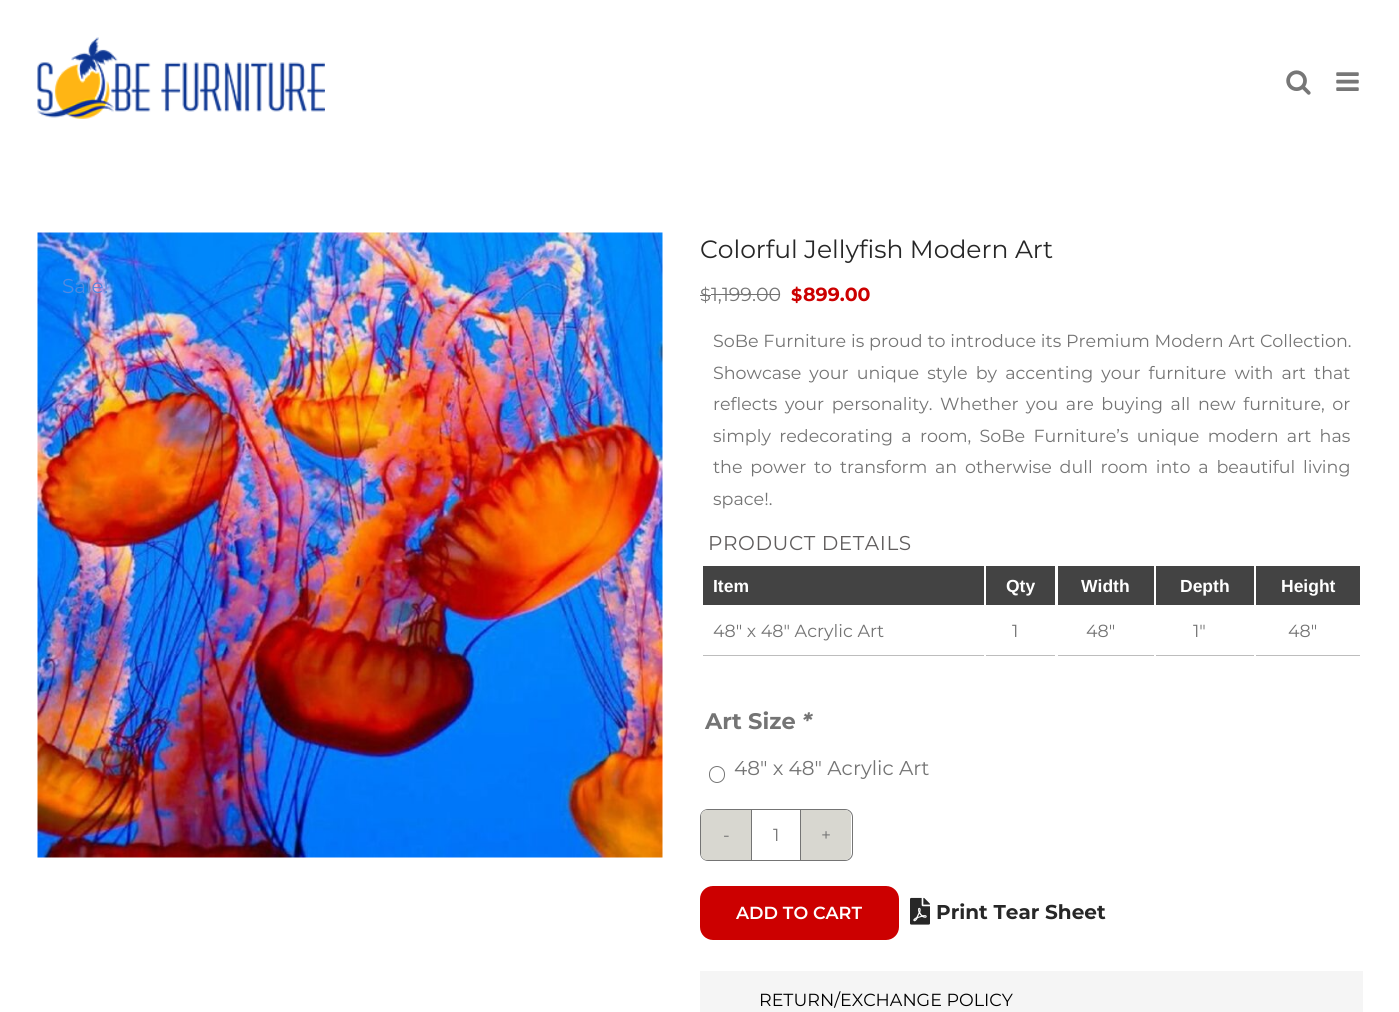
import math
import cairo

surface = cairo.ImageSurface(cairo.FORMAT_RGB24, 1399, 1012)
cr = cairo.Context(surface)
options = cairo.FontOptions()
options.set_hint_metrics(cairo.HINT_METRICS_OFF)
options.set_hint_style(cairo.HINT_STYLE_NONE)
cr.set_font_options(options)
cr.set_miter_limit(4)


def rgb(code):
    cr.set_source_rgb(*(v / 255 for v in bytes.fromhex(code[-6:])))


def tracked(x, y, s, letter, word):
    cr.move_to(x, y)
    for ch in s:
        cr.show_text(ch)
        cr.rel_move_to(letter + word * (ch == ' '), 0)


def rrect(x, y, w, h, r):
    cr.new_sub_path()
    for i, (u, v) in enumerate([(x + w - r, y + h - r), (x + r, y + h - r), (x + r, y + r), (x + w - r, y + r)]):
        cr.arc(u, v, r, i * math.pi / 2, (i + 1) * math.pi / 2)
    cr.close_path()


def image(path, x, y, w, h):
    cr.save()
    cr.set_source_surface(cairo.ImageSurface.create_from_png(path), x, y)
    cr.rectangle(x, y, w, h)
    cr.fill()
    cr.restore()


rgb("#ffffff")
cr.paint()
image("img/1.png", 37, 37, 288, 82)
image("img/2.png", 1286, 70, 25, 25)
image("img/3.png", 1336, 72, 23, 19)
image("img/4.png", 37, 232, 626, 626)
for x, y, w, h, color in [
    (711, 294, 69, 1, "#747474"),
    (700, 295, 11, 1, "#747474"),
    (703, 566, 281, 39, "#434343"),
    (986, 566, 69, 39, "#434343"),
    (1058, 566, 96, 39, "#434343"),
    (1156, 566, 98, 39, "#434343"),
    (1256, 566, 104, 39, "#434343"),
    (703, 655, 281, 1, "#bdbdbd"),
    (986, 655, 69, 1, "#bdbdbd"),
    (1058, 655, 96, 1, "#bdbdbd"),
    (1156, 655, 98, 1, "#bdbdbd"),
    (1256, 655, 104, 1, "#bdbdbd"),
]:
    rgb(color)
    cr.rectangle(x, y, w, h)
    cr.fill()
rrect(709.5, 766.5, 15, 16, 7.5)
rgb("#767676")
cr.set_line_width(1)
cr.stroke()
rrect(700.5, 809.5, 152, 51, 7.5)
rgb("#747474")
cr.stroke()
rgb("#d8d7d0")
cr.new_path()
cr.move_to(707, 810)
cr.line_to(751, 810)
cr.line_to(751, 860)
cr.line_to(707, 860)
cr.curve_to(703.5, 860, 701, 857.5, 701, 854)
cr.line_to(701, 816)
cr.curve_to(701, 812.5, 703.5, 810, 707, 810)
cr.close_path()
cr.fill()
rgb("#747474")
cr.rectangle(800, 810, 1, 50)
cr.fill()
cr.rectangle(751, 810, 1, 50)
cr.fill()
rgb("#d8d7d0")
cr.new_path()
cr.move_to(801, 810)
cr.line_to(845, 810)
cr.curve_to(848.5, 810, 851, 812.5, 851, 816)
cr.line_to(851, 854)
cr.curve_to(851, 857.5, 848.5, 860, 845, 860)
cr.line_to(801, 860)
cr.close_path()
cr.fill()
rgb("#cc0000")
rrect(700, 886, 199, 54, 13)
cr.fill()
image("img/5.png", 910, 897, 20, 28)
rgb("#f5f5f5")
cr.rectangle(700, 971, 663, 41)
cr.fill()
cr.select_font_face("Montserrat")
cr.set_font_size(20)
rgb("#5189e1")
cr.move_to(62, 293)
cr.show_text("Sale!")
cr.set_font_size(25)
rgb("#272727")
cr.move_to(700, 258)
cr.show_text("Colorful Jellyfish Modern Art")
cr.set_font_size(17.5)
rgb("#747474")
cr.move_to(700, 301)
cr.show_text("$")
cr.set_font_size(19)
cr.move_to(711, 301)
cr.show_text("1,199.00")
cr.select_font_face("Montserrat", cairo.FONT_SLANT_NORMAL, cairo.FONT_WEIGHT_BOLD)
cr.set_font_size(17.5)
rgb("#cc0000")
cr.move_to(791, 301)
cr.show_text("$")
cr.set_font_size(19)
cr.move_to(803, 301)
cr.show_text("899.00")
cr.select_font_face("Montserrat")
cr.set_font_size(17.5)
rgb("#747474")
tracked(713, 347, "SoBe Furniture is proud to introduce its Premium Modern Art Collection.", 0, 0.25)
tracked(713, 379, "Showcase your unique style by accenting your furniture with art that", 0, 3.5)
tracked(713, 410, "reflects your personality. Whether you are buying all new furniture, or", 0, 3)
tracked(713, 442, "simply redecorating a room, SoBe Furniture’s unique modern art has", 0, 3.75)
tracked(713, 473, "the power to transform an otherwise dull room into a beautiful living", 0, 3.25)
cr.move_to(713, 505)
cr.show_text("space!.")
cr.set_font_size(20)
rgb("#605d5d")
tracked(708, 550, "PRODUCT DETAILS", 0.6, 0)
cr.select_font_face("Liberation Sans", cairo.FONT_SLANT_NORMAL, cairo.FONT_WEIGHT_BOLD)
cr.set_font_size(17.5)
rgb("#ffffff")
for x, y, s in [
    (713, 592, "Item"),
    (1006, 592, "Qty"),
    (1081, 592, "Width"),
    (1180, 592, "Depth"),
    (1281, 592, "Height"),
]:
    cr.move_to(x, y)
    cr.show_text(s)
cr.select_font_face("Montserrat")
rgb("#747474")
for x, y, s in [
    (713, 637, "48″ x 48″ Acrylic Art"),
    (1012, 637, "1"),
    (1086, 637, "48″"),
    (1193, 637, "1″"),
    (1288, 637, "48″"),
]:
    cr.move_to(x, y)
    cr.show_text(s)
cr.select_font_face("Montserrat", cairo.FONT_SLANT_NORMAL, cairo.FONT_WEIGHT_BOLD)
cr.set_font_size(22.5)
cr.move_to(705, 729)
cr.show_text("Art Size")
cr.select_font_face("Montserrat", cairo.FONT_SLANT_ITALIC, cairo.FONT_WEIGHT_BOLD)
cr.move_to(802, 729)
cr.show_text("*")
cr.select_font_face("Montserrat")
cr.set_font_size(20)
cr.move_to(734, 775)
cr.show_text("48″ x 48″ Acrylic Art")
cr.set_font_size(17.5)
for x, y, s in [
    (723, 841, "-"),
    (773, 841, "1"),
    (821, 841, "+"),
]:
    cr.move_to(x, y)
    cr.show_text(s)
cr.select_font_face("Montserrat SemiBold")
rgb("#ffffff")
cr.move_to(736, 919)
cr.show_text("ADD TO CART")
cr.select_font_face("Montserrat", cairo.FONT_SLANT_NORMAL, cairo.FONT_WEIGHT_BOLD)
cr.set_font_size(20)
rgb("#272727")
cr.move_to(936, 919)
cr.show_text("Print Tear Sheet")
cr.select_font_face("Montserrat")
cr.set_font_size(17.5)
rgb("#000000")
cr.move_to(759, 1006)
cr.show_text("RETURN/EXCHANGE POLICY")
surface.write_to_png("page.png")
